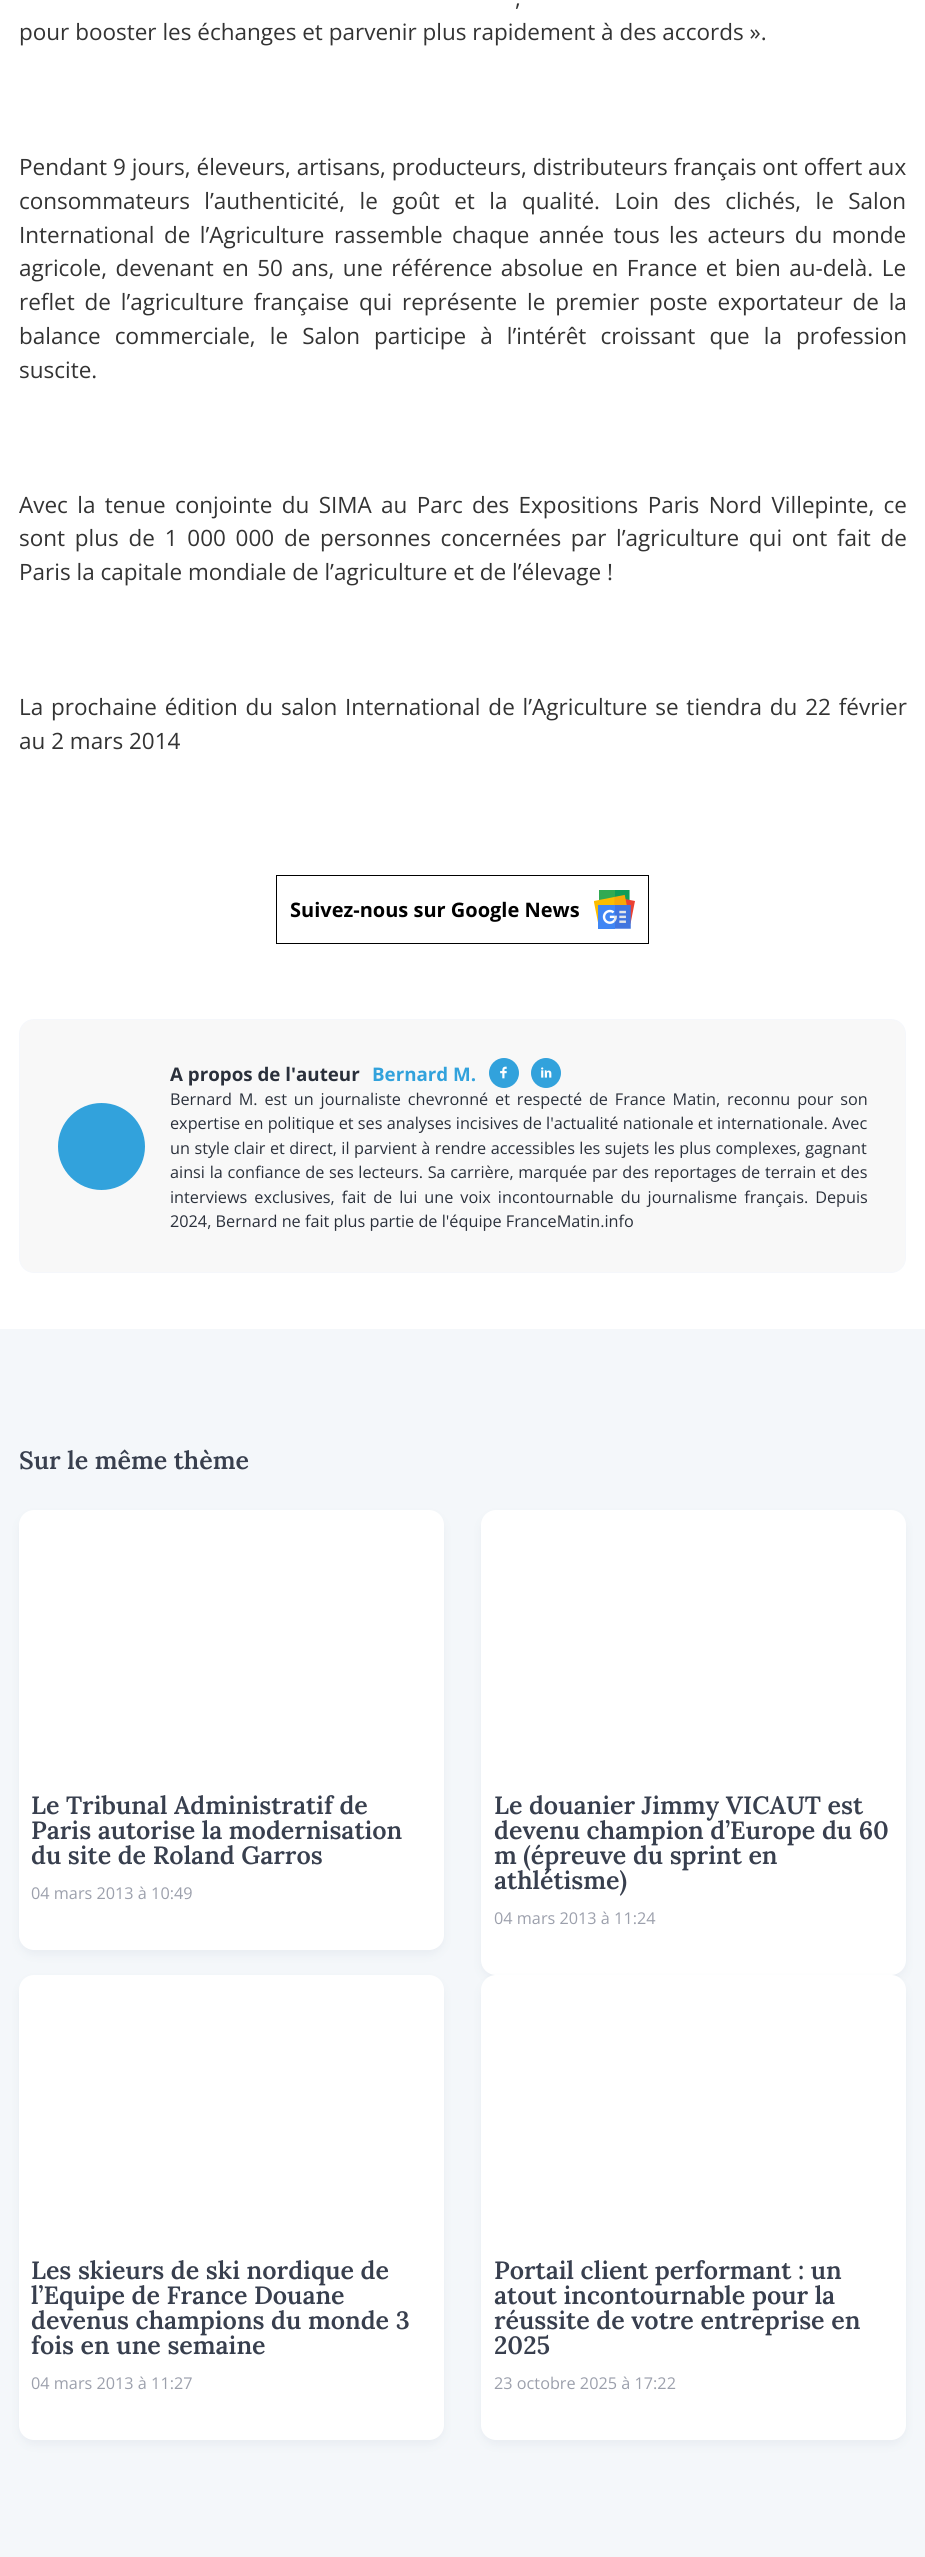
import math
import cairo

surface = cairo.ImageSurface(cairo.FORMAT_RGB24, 925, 2557)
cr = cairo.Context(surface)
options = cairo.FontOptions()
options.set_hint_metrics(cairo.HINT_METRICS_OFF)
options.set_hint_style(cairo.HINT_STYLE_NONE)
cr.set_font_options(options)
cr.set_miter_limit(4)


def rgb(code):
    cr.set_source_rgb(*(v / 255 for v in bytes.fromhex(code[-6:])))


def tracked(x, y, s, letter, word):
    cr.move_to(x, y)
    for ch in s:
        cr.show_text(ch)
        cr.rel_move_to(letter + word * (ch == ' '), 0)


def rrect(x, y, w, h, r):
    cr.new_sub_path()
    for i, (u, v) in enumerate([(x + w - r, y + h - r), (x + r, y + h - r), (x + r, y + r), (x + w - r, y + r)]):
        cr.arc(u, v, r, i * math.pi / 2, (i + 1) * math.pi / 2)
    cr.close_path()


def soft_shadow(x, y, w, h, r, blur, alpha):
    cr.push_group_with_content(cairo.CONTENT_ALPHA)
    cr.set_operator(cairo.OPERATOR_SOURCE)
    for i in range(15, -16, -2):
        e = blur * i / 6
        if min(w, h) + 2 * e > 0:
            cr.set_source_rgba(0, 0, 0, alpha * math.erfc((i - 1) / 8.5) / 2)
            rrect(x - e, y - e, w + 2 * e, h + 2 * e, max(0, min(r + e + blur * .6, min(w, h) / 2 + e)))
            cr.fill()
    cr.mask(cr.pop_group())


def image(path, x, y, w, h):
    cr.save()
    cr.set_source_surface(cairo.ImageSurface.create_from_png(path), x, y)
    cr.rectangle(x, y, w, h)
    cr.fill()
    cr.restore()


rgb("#f4f7fa")
cr.paint()
rgb("#ffffff")
cr.rectangle(0, 0, 925, 1329)
cr.fill()
cr.rectangle(276.5, 875.5, 372, 68)
rgb("#000000")
cr.set_line_width(1)
cr.stroke()
image("img/1.png", 594, 890, 41, 39)
rgb("#f8f8f8")
rrect(19.5, 1019.5, 886, 253, 14.5)
cr.fill_preserve()
rgb("#f5f7fb")
cr.stroke()
rgb("#32a2dc")
cr.arc(101.5, 1146.5, 43.5, 0, 2 * math.pi)
cr.fill()
cr.arc(504, 1073, 15, 0, 2 * math.pi)
cr.fill()
image("img/2.png", 500, 1066, 7, 13)
cr.arc(546, 1073, 15, 0, 2 * math.pi)
cr.fill()
image("img/3.png", 541, 1067, 11, 11)
rgb("#334d72")
soft_shadow(19, 1515, 425, 440, 15, 5, 0.06)
rgb("#ffffff")
rrect(19, 1510, 425, 440, 15)
cr.fill()
rgb("#334d72")
soft_shadow(481, 1515, 425, 465, 15, 5, 0.06)
rgb("#ffffff")
rrect(481, 1510, 425, 465, 15)
cr.fill()
rgb("#334d72")
soft_shadow(19, 1980, 425, 465, 15, 5, 0.06)
rgb("#ffffff")
rrect(19, 1975, 425, 465, 15)
cr.fill()
rgb("#334d72")
soft_shadow(481, 1980, 425, 465, 15, 5, 0.06)
rgb("#ffffff")
rrect(481, 1975, 425, 465, 15)
cr.fill()
cr.select_font_face("Open Sans")
cr.set_font_size(22.5)
rgb("#333333")
cr.move_to(515, 6)
cr.show_text(",")
cr.move_to(19, 40)
cr.show_text("pour booster les échanges et parvenir plus rapidement à des accords ».")
tracked(19, 175, "Pendant 9 jours, éleveurs, artisans, producteurs, distributeurs français ont offert aux", 0, 0.1)
tracked(19, 209, "consommateurs l’authenticité, le goût et la qualité. Loin des clichés, le Salon", 0, 8.6)
tracked(19, 243, "International de l’Agriculture rassemble chaque année tous les acteurs du monde", 0, 3.6)
tracked(19, 276, "agricole, devenant en 50 ans, une référence absolue en France et bien au-delà. Le", 0, 2.6)
tracked(19, 310, "reflet de l’agriculture française qui représente le premier poste exportateur de la", 0, 4)
tracked(19, 344, "balance commerciale, le Salon participe à l’intérêt croissant que la profession", 0, 8.25)
cr.move_to(19, 378)
cr.show_text("suscite.")
tracked(19, 513, "Avec la tenue conjointe du SIMA au Parc des Expositions Paris Nord Villepinte, ce", 0, 3.5)
tracked(19, 546, "sont plus de 1 000 000 de personnes concernées par l’agriculture qui ont fait de", 0, 3.9)
cr.move_to(19, 580)
cr.show_text("Paris la capitale mondiale de l’agriculture et de l’élevage !")
tracked(19, 715, "La prochaine édition du salon International de l’Agriculture se tiendra du 22 février", 0, 2)
cr.move_to(19, 749)
cr.show_text("au 2 mars 2014")
cr.select_font_face("Open Sans", cairo.FONT_SLANT_NORMAL, cairo.FONT_WEIGHT_BOLD)
cr.set_font_size(20)
rgb("#000000")
cr.move_to(290, 917)
cr.show_text("Suivez-nous sur Google News")
cr.set_font_size(18.75)
rgb("#2a303b")
cr.move_to(170, 1081)
cr.show_text("A propos de l'auteur")
rgb("#32a2dc")
cr.move_to(372, 1081)
cr.show_text("Bernard M.")
cr.select_font_face("Open Sans")
cr.set_font_size(16.25)
rgb("#2a303b")
tracked(170, 1105, "Bernard M. est un journaliste chevronné et respecté de France Matin, reconnu pour son", 0, 2.6)
cr.move_to(170, 1129)
cr.show_text("expertise en politique et ses analyses incisives de l'actualité nationale et internationale. Avec")
tracked(170, 1154, "un style clair et direct, il parvient à rendre accessibles les sujets les plus complexes, gagnant", 0, 0.25)
tracked(170, 1178, "ainsi la confiance de ses lecteurs. Sa carrière, marquée par des reportages de terrain et des", 0, 0.5)
tracked(170, 1203, "interviews exclusives, fait de lui une voix incontournable du journalisme français. Depuis", 0, 2.75)
cr.move_to(170, 1227)
cr.show_text("2024, Bernard ne fait plus partie de l'équipe FranceMatin.info")
cr.select_font_face("Lora SemiBold")
cr.set_font_size(25)
rgb("#383f4e")
for x, y, s in [
    (19, 1469, "Sur le même thème"),
    (31, 1814, "Le Tribunal Administratif de"),
    (31, 1839, "Paris autorise la modernisation"),
    (31, 1864, "du site de Roland Garros"),
]:
    cr.move_to(x, y)
    cr.show_text(s)
cr.select_font_face("Open Sans")
cr.set_font_size(16.25)
rgb("#9ca0ac")
cr.move_to(31, 1899)
cr.show_text("04 mars 2013 à 10:49")
cr.select_font_face("Lora SemiBold")
cr.set_font_size(25)
rgb("#383f4e")
for x, y, s in [
    (494, 1814, "Le douanier Jimmy VICAUT est"),
    (494, 1839, "devenu champion d’Europe du 60"),
    (494, 1864, "m (épreuve du sprint en"),
    (494, 1889, "athlétisme)"),
]:
    cr.move_to(x, y)
    cr.show_text(s)
cr.select_font_face("Open Sans")
cr.set_font_size(16.25)
rgb("#9ca0ac")
cr.move_to(494, 1924)
cr.show_text("04 mars 2013 à 11:24")
cr.select_font_face("Lora SemiBold")
cr.set_font_size(25)
rgb("#383f4e")
for x, y, s in [
    (31, 2279, "Les skieurs de ski nordique de"),
    (31, 2304, "l’Equipe de France Douane"),
    (31, 2329, "devenus champions du monde 3"),
    (31, 2354, "fois en une semaine"),
]:
    cr.move_to(x, y)
    cr.show_text(s)
cr.select_font_face("Open Sans")
cr.set_font_size(16.25)
rgb("#9ca0ac")
cr.move_to(31, 2389)
cr.show_text("04 mars 2013 à 11:27")
cr.select_font_face("Lora SemiBold")
cr.set_font_size(25)
rgb("#383f4e")
for x, y, s in [
    (494, 2279, "Portail client performant : un"),
    (494, 2304, "atout incontournable pour la"),
    (494, 2329, "réussite de votre entreprise en"),
    (494, 2354, "2025"),
]:
    cr.move_to(x, y)
    cr.show_text(s)
cr.select_font_face("Open Sans")
cr.set_font_size(16.25)
rgb("#9ca0ac")
cr.move_to(494, 2389)
cr.show_text("23 octobre 2025 à 17:22")
surface.write_to_png("page.png")
